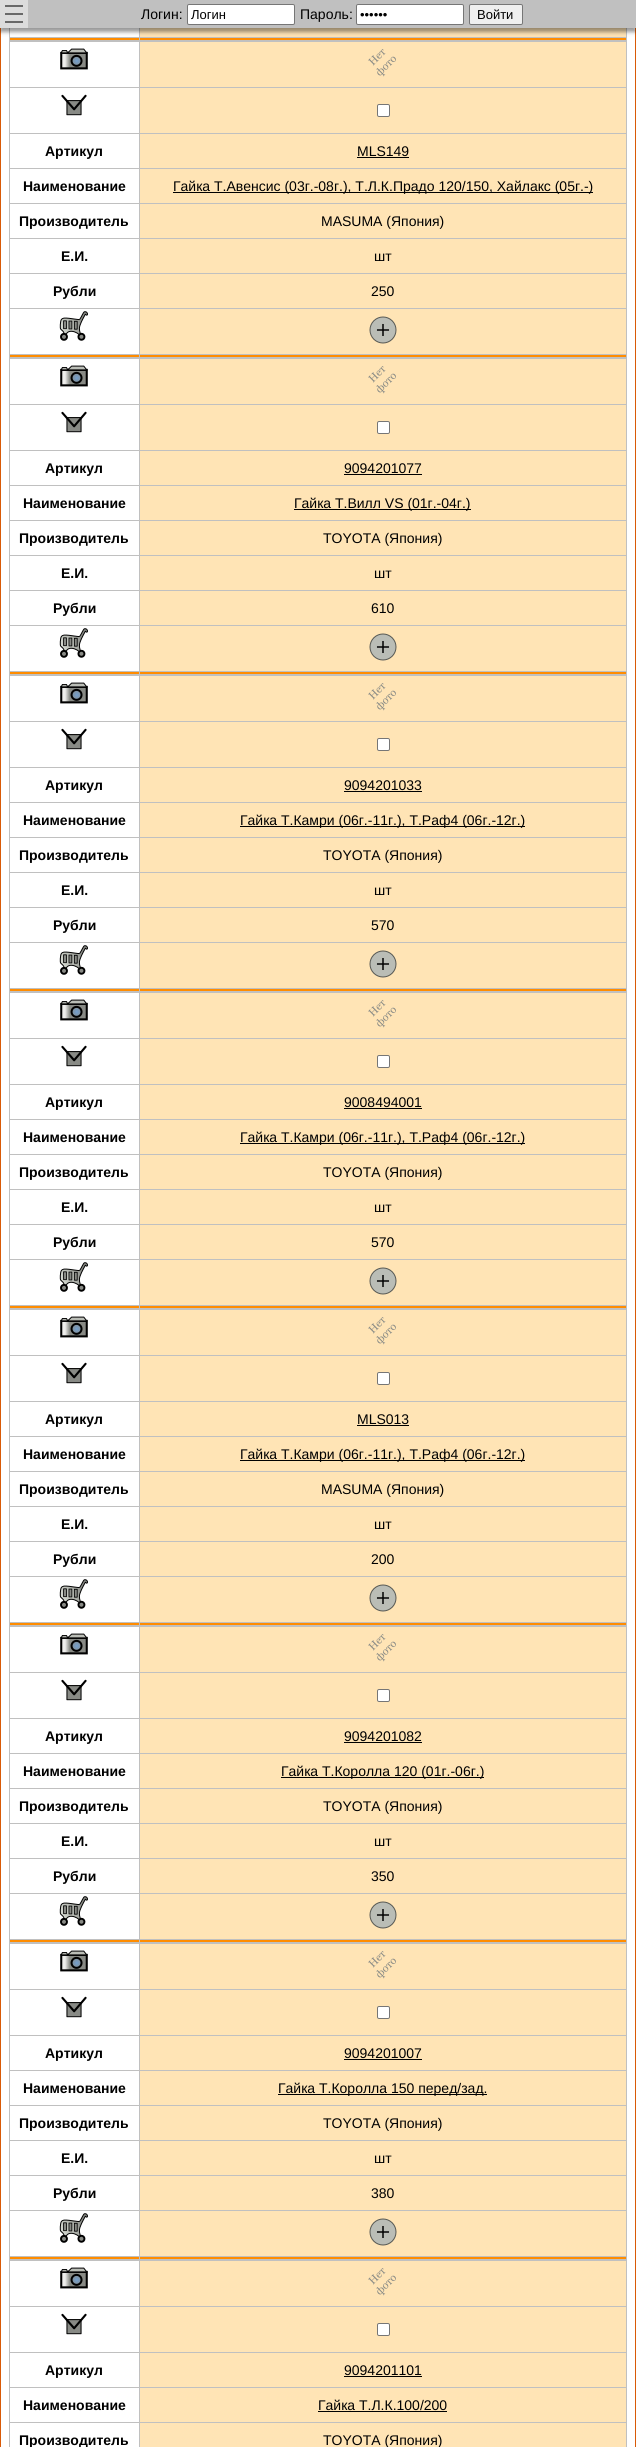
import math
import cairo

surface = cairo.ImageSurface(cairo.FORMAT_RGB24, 636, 2447)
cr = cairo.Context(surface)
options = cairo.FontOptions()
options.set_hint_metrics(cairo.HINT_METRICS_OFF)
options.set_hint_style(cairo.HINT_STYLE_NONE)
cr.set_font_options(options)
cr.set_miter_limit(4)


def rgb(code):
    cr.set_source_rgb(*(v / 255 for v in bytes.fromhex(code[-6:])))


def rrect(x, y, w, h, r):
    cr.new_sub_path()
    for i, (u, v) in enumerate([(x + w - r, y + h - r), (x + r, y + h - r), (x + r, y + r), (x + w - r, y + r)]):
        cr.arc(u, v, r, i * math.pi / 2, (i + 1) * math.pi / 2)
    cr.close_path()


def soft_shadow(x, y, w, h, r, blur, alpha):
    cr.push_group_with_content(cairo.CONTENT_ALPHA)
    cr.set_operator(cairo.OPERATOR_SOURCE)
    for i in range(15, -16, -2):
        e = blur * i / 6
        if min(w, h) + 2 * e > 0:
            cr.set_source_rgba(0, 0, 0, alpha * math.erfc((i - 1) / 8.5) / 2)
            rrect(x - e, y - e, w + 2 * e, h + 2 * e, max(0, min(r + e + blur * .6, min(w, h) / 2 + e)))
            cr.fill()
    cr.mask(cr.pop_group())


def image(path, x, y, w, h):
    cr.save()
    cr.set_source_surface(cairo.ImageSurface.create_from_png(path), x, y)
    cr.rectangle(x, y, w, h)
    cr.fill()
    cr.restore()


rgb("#ffffff")
cr.paint()
for x, y, w, h, color in [
    (635, 28, 1, 2419, "#d95a07"),
    (0, 28, 1, 2419, "#d95a07"),
    (9, 28, 618, 2419, "#c0c0c0"),
    (10, 28, 129, 9, "#ffffff"),
    (140, 28, 486, 9, "#ffe4b5"),
    (10, 38, 129, 2, "#ff8c00"),
    (140, 38, 486, 2, "#ff8c00"),
]:
    rgb(color)
    cr.rectangle(x, y, w, h)
    cr.fill()
rgb("#000000")
soft_shadow(0, 4, 636, 28, 0, 2, 0.4)
for x, y, w, h, color in [
    (28, 0, 608, 28, "#c0c0c0"),
    (0, 0, 28, 28, "#dcdcdc"),
    (5, 13, 18, 2, "#696969"),
    (5, 5, 18, 2, "#696969"),
    (5, 21, 18, 2, "#696969"),
]:
    rgb(color)
    cr.rectangle(x, y, w, h)
    cr.fill()
rgb("#ffffff")
rrect(187.5, 4.5, 107, 20, 1.5)
cr.fill_preserve()
rgb("#767676")
cr.set_line_width(1)
cr.stroke()
rgb("#ffffff")
rrect(356.5, 4.5, 107, 20, 1.5)
cr.fill_preserve()
rgb("#767676")
cr.stroke()
rgb("#efefef")
rrect(469.5, 4.5, 53, 20, 1.5)
cr.fill_preserve()
rgb("#767676")
cr.stroke()
rgb("#ffffff")
cr.rectangle(10, 42, 129, 45)
cr.fill()
image("img/1.png", 60, 48, 28, 22)
rgb("#ffe4b5")
cr.rectangle(140, 42, 486, 45)
cr.fill()
image("img/2.png", 368, 49, 28, 28)
rgb("#ffffff")
cr.rectangle(10, 88, 129, 45)
cr.fill()
image("img/3.png", 61, 94, 26, 22)
rgb("#ffe4b5")
cr.rectangle(140, 88, 486, 45)
cr.fill()
rgb("#ffffff")
rrect(377.5, 104.5, 12, 12, 1.5)
cr.fill_preserve()
rgb("#767676")
cr.stroke()
for x, y, w, h, color in [
    (10, 134, 129, 34, "#ffffff"),
    (140, 134, 486, 34, "#ffe4b5"),
    (357, 157, 52, 1, "#000000"),
    (10, 169, 129, 34, "#ffffff"),
    (140, 169, 486, 34, "#ffe4b5"),
    (173, 192, 420, 1, "#000000"),
    (10, 204, 129, 34, "#ffffff"),
    (140, 204, 486, 34, "#ffe4b5"),
    (10, 239, 129, 34, "#ffffff"),
    (140, 239, 486, 34, "#ffe4b5"),
    (10, 274, 129, 34, "#ffffff"),
    (140, 274, 486, 34, "#ffe4b5"),
    (10, 309, 129, 45, "#ffffff"),
]:
    rgb(color)
    cr.rectangle(x, y, w, h)
    cr.fill()
image("img/4.png", 59, 311, 29, 30)
rgb("#ffe4b5")
cr.rectangle(140, 309, 486, 45)
cr.fill()
image("img/5.png", 369, 316, 28, 28)
for x, y, w, h, color in [
    (10, 355, 129, 2, "#ff8c00"),
    (140, 355, 486, 2, "#ff8c00"),
    (10, 359, 129, 45, "#ffffff"),
]:
    rgb(color)
    cr.rectangle(x, y, w, h)
    cr.fill()
image("img/1.png", 60, 365, 28, 22)
rgb("#ffe4b5")
cr.rectangle(140, 359, 486, 45)
cr.fill()
image("img/2.png", 368, 366, 28, 28)
rgb("#ffffff")
cr.rectangle(10, 405, 129, 45)
cr.fill()
image("img/3.png", 61, 411, 26, 22)
rgb("#ffe4b5")
cr.rectangle(140, 405, 486, 45)
cr.fill()
rgb("#ffffff")
rrect(377.5, 421.5, 12, 12, 1.5)
cr.fill_preserve()
rgb("#767676")
cr.stroke()
for x, y, w, h, color in [
    (10, 451, 129, 34, "#ffffff"),
    (140, 451, 486, 34, "#ffe4b5"),
    (344, 474, 78, 1, "#000000"),
    (10, 486, 129, 34, "#ffffff"),
    (140, 486, 486, 34, "#ffe4b5"),
    (294, 509, 177, 1, "#000000"),
    (10, 521, 129, 34, "#ffffff"),
    (140, 521, 486, 34, "#ffe4b5"),
    (10, 556, 129, 34, "#ffffff"),
    (140, 556, 486, 34, "#ffe4b5"),
    (10, 591, 129, 34, "#ffffff"),
    (140, 591, 486, 34, "#ffe4b5"),
    (10, 626, 129, 45, "#ffffff"),
]:
    rgb(color)
    cr.rectangle(x, y, w, h)
    cr.fill()
image("img/4.png", 59, 628, 29, 30)
rgb("#ffe4b5")
cr.rectangle(140, 626, 486, 45)
cr.fill()
image("img/5.png", 369, 633, 28, 28)
for x, y, w, h, color in [
    (10, 672, 129, 2, "#ff8c00"),
    (140, 672, 486, 2, "#ff8c00"),
    (10, 676, 129, 45, "#ffffff"),
]:
    rgb(color)
    cr.rectangle(x, y, w, h)
    cr.fill()
image("img/1.png", 60, 682, 28, 22)
rgb("#ffe4b5")
cr.rectangle(140, 676, 486, 45)
cr.fill()
image("img/2.png", 368, 683, 28, 28)
rgb("#ffffff")
cr.rectangle(10, 722, 129, 45)
cr.fill()
image("img/3.png", 61, 728, 26, 22)
rgb("#ffe4b5")
cr.rectangle(140, 722, 486, 45)
cr.fill()
rgb("#ffffff")
rrect(377.5, 738.5, 12, 12, 1.5)
cr.fill_preserve()
rgb("#767676")
cr.stroke()
for x, y, w, h, color in [
    (10, 768, 129, 34, "#ffffff"),
    (140, 768, 486, 34, "#ffe4b5"),
    (344, 791, 78, 1, "#000000"),
    (10, 803, 129, 34, "#ffffff"),
    (140, 803, 486, 34, "#ffe4b5"),
    (240, 826, 285, 1, "#000000"),
    (10, 838, 129, 34, "#ffffff"),
    (140, 838, 486, 34, "#ffe4b5"),
    (10, 873, 129, 34, "#ffffff"),
    (140, 873, 486, 34, "#ffe4b5"),
    (10, 908, 129, 34, "#ffffff"),
    (140, 908, 486, 34, "#ffe4b5"),
    (10, 943, 129, 45, "#ffffff"),
]:
    rgb(color)
    cr.rectangle(x, y, w, h)
    cr.fill()
image("img/4.png", 59, 945, 29, 30)
rgb("#ffe4b5")
cr.rectangle(140, 943, 486, 45)
cr.fill()
image("img/5.png", 369, 950, 28, 28)
for x, y, w, h, color in [
    (10, 989, 129, 2, "#ff8c00"),
    (140, 989, 486, 2, "#ff8c00"),
    (10, 993, 129, 45, "#ffffff"),
]:
    rgb(color)
    cr.rectangle(x, y, w, h)
    cr.fill()
image("img/1.png", 60, 999, 28, 22)
rgb("#ffe4b5")
cr.rectangle(140, 993, 486, 45)
cr.fill()
image("img/2.png", 368, 1000, 28, 28)
rgb("#ffffff")
cr.rectangle(10, 1039, 129, 45)
cr.fill()
image("img/3.png", 61, 1045, 26, 22)
rgb("#ffe4b5")
cr.rectangle(140, 1039, 486, 45)
cr.fill()
rgb("#ffffff")
rrect(377.5, 1055.5, 12, 12, 1.5)
cr.fill_preserve()
rgb("#767676")
cr.stroke()
for x, y, w, h, color in [
    (10, 1085, 129, 34, "#ffffff"),
    (140, 1085, 486, 34, "#ffe4b5"),
    (344, 1108, 78, 1, "#000000"),
    (10, 1120, 129, 34, "#ffffff"),
    (140, 1120, 486, 34, "#ffe4b5"),
    (240, 1143, 285, 1, "#000000"),
    (10, 1155, 129, 34, "#ffffff"),
    (140, 1155, 486, 34, "#ffe4b5"),
    (10, 1190, 129, 34, "#ffffff"),
    (140, 1190, 486, 34, "#ffe4b5"),
    (10, 1225, 129, 34, "#ffffff"),
    (140, 1225, 486, 34, "#ffe4b5"),
    (10, 1260, 129, 45, "#ffffff"),
]:
    rgb(color)
    cr.rectangle(x, y, w, h)
    cr.fill()
image("img/4.png", 59, 1262, 29, 30)
rgb("#ffe4b5")
cr.rectangle(140, 1260, 486, 45)
cr.fill()
image("img/5.png", 369, 1267, 28, 28)
for x, y, w, h, color in [
    (10, 1306, 129, 2, "#ff8c00"),
    (140, 1306, 486, 2, "#ff8c00"),
    (10, 1310, 129, 45, "#ffffff"),
]:
    rgb(color)
    cr.rectangle(x, y, w, h)
    cr.fill()
image("img/1.png", 60, 1316, 28, 22)
rgb("#ffe4b5")
cr.rectangle(140, 1310, 486, 45)
cr.fill()
image("img/2.png", 368, 1317, 28, 28)
rgb("#ffffff")
cr.rectangle(10, 1356, 129, 45)
cr.fill()
image("img/3.png", 61, 1362, 26, 22)
rgb("#ffe4b5")
cr.rectangle(140, 1356, 486, 45)
cr.fill()
rgb("#ffffff")
rrect(377.5, 1372.5, 12, 12, 1.5)
cr.fill_preserve()
rgb("#767676")
cr.stroke()
for x, y, w, h, color in [
    (10, 1402, 129, 34, "#ffffff"),
    (140, 1402, 486, 34, "#ffe4b5"),
    (357, 1425, 52, 1, "#000000"),
    (10, 1437, 129, 34, "#ffffff"),
    (140, 1437, 486, 34, "#ffe4b5"),
    (240, 1460, 285, 1, "#000000"),
    (10, 1472, 129, 34, "#ffffff"),
    (140, 1472, 486, 34, "#ffe4b5"),
    (10, 1507, 129, 34, "#ffffff"),
    (140, 1507, 486, 34, "#ffe4b5"),
    (10, 1542, 129, 34, "#ffffff"),
    (140, 1542, 486, 34, "#ffe4b5"),
    (10, 1577, 129, 45, "#ffffff"),
]:
    rgb(color)
    cr.rectangle(x, y, w, h)
    cr.fill()
image("img/4.png", 59, 1579, 29, 30)
rgb("#ffe4b5")
cr.rectangle(140, 1577, 486, 45)
cr.fill()
image("img/5.png", 369, 1584, 28, 28)
for x, y, w, h, color in [
    (10, 1623, 129, 2, "#ff8c00"),
    (140, 1623, 486, 2, "#ff8c00"),
    (10, 1627, 129, 45, "#ffffff"),
]:
    rgb(color)
    cr.rectangle(x, y, w, h)
    cr.fill()
image("img/1.png", 60, 1633, 28, 22)
rgb("#ffe4b5")
cr.rectangle(140, 1627, 486, 45)
cr.fill()
image("img/2.png", 368, 1634, 28, 28)
rgb("#ffffff")
cr.rectangle(10, 1673, 129, 45)
cr.fill()
image("img/3.png", 61, 1679, 26, 22)
rgb("#ffe4b5")
cr.rectangle(140, 1673, 486, 45)
cr.fill()
rgb("#ffffff")
rrect(377.5, 1689.5, 12, 12, 1.5)
cr.fill_preserve()
rgb("#767676")
cr.stroke()
for x, y, w, h, color in [
    (10, 1719, 129, 34, "#ffffff"),
    (140, 1719, 486, 34, "#ffe4b5"),
    (344, 1742, 78, 1, "#000000"),
    (10, 1754, 129, 34, "#ffffff"),
    (140, 1754, 486, 34, "#ffe4b5"),
    (281, 1777, 203, 1, "#000000"),
    (10, 1789, 129, 34, "#ffffff"),
    (140, 1789, 486, 34, "#ffe4b5"),
    (10, 1824, 129, 34, "#ffffff"),
    (140, 1824, 486, 34, "#ffe4b5"),
    (10, 1859, 129, 34, "#ffffff"),
    (140, 1859, 486, 34, "#ffe4b5"),
    (10, 1894, 129, 45, "#ffffff"),
]:
    rgb(color)
    cr.rectangle(x, y, w, h)
    cr.fill()
image("img/4.png", 59, 1896, 29, 30)
rgb("#ffe4b5")
cr.rectangle(140, 1894, 486, 45)
cr.fill()
image("img/5.png", 369, 1901, 28, 28)
for x, y, w, h, color in [
    (10, 1940, 129, 2, "#ff8c00"),
    (140, 1940, 486, 2, "#ff8c00"),
    (10, 1944, 129, 45, "#ffffff"),
]:
    rgb(color)
    cr.rectangle(x, y, w, h)
    cr.fill()
image("img/1.png", 60, 1950, 28, 22)
rgb("#ffe4b5")
cr.rectangle(140, 1944, 486, 45)
cr.fill()
image("img/2.png", 368, 1951, 28, 28)
rgb("#ffffff")
cr.rectangle(10, 1990, 129, 45)
cr.fill()
image("img/3.png", 61, 1996, 26, 22)
rgb("#ffe4b5")
cr.rectangle(140, 1990, 486, 45)
cr.fill()
rgb("#ffffff")
rrect(377.5, 2006.5, 12, 12, 1.5)
cr.fill_preserve()
rgb("#767676")
cr.stroke()
for x, y, w, h, color in [
    (10, 2036, 129, 34, "#ffffff"),
    (140, 2036, 486, 34, "#ffe4b5"),
    (344, 2059, 78, 1, "#000000"),
    (10, 2071, 129, 34, "#ffffff"),
    (140, 2071, 486, 34, "#ffe4b5"),
    (278, 2094, 209, 1, "#000000"),
    (10, 2106, 129, 34, "#ffffff"),
    (140, 2106, 486, 34, "#ffe4b5"),
    (10, 2141, 129, 34, "#ffffff"),
    (140, 2141, 486, 34, "#ffe4b5"),
    (10, 2176, 129, 34, "#ffffff"),
    (140, 2176, 486, 34, "#ffe4b5"),
    (10, 2211, 129, 45, "#ffffff"),
]:
    rgb(color)
    cr.rectangle(x, y, w, h)
    cr.fill()
image("img/4.png", 59, 2213, 29, 30)
rgb("#ffe4b5")
cr.rectangle(140, 2211, 486, 45)
cr.fill()
image("img/5.png", 369, 2218, 28, 28)
for x, y, w, h, color in [
    (10, 2257, 129, 2, "#ff8c00"),
    (140, 2257, 486, 2, "#ff8c00"),
    (10, 2261, 129, 45, "#ffffff"),
]:
    rgb(color)
    cr.rectangle(x, y, w, h)
    cr.fill()
image("img/1.png", 60, 2267, 28, 22)
rgb("#ffe4b5")
cr.rectangle(140, 2261, 486, 45)
cr.fill()
image("img/2.png", 368, 2268, 28, 28)
rgb("#ffffff")
cr.rectangle(10, 2307, 129, 45)
cr.fill()
image("img/3.png", 61, 2313, 26, 22)
rgb("#ffe4b5")
cr.rectangle(140, 2307, 486, 45)
cr.fill()
rgb("#ffffff")
rrect(377.5, 2323.5, 12, 12, 1.5)
cr.fill_preserve()
rgb("#767676")
cr.stroke()
for x, y, w, h, color in [
    (10, 2353, 129, 34, "#ffffff"),
    (140, 2353, 486, 34, "#ffe4b5"),
    (344, 2376, 78, 1, "#000000"),
    (10, 2388, 129, 34, "#ffffff"),
    (140, 2388, 486, 34, "#ffe4b5"),
    (318, 2411, 129, 1, "#000000"),
    (10, 2423, 129, 24, "#ffffff"),
    (140, 2423, 486, 24, "#ffe4b5"),
]:
    rgb(color)
    cr.rectangle(x, y, w, h)
    cr.fill()
cr.select_font_face("Liberation Sans")
cr.set_font_size(14)
rgb("#000000")
cr.move_to(141, 19)
cr.show_text("Логин:")
cr.set_font_size(13)
cr.move_to(191, 19)
cr.show_text("Логин")
cr.set_font_size(14)
cr.move_to(300, 19)
cr.show_text("Пароль:")
cr.set_font_size(13)
cr.move_to(360, 19)
cr.show_text("••••••")
cr.move_to(477, 19)
cr.show_text("Войти")
cr.select_font_face("Liberation Sans", cairo.FONT_SLANT_NORMAL, cairo.FONT_WEIGHT_BOLD)
cr.set_font_size(14)
cr.move_to(45, 156)
cr.show_text("Артикул")
cr.select_font_face("Liberation Sans")
cr.move_to(357, 156)
cr.show_text("MLS149")
cr.select_font_face("Liberation Sans", cairo.FONT_SLANT_NORMAL, cairo.FONT_WEIGHT_BOLD)
cr.move_to(23, 191)
cr.show_text("Наименование")
cr.select_font_face("Liberation Sans")
cr.move_to(173, 191)
cr.show_text("Гайка Т.Авенсис (03г.-08г.), Т.Л.К.Прадо 120/150, Хайлакс (05г.-)")
cr.select_font_face("Liberation Sans", cairo.FONT_SLANT_NORMAL, cairo.FONT_WEIGHT_BOLD)
cr.move_to(19, 226)
cr.show_text("Производитель")
cr.select_font_face("Liberation Sans")
cr.move_to(321, 226)
cr.show_text("MASUMA (Япония)")
cr.select_font_face("Liberation Sans", cairo.FONT_SLANT_NORMAL, cairo.FONT_WEIGHT_BOLD)
cr.move_to(61, 261)
cr.show_text("Е.И.")
cr.select_font_face("Liberation Sans")
cr.move_to(374, 261)
cr.show_text("шт")
cr.select_font_face("Liberation Sans", cairo.FONT_SLANT_NORMAL, cairo.FONT_WEIGHT_BOLD)
cr.move_to(53, 296)
cr.show_text("Рубли")
cr.select_font_face("Liberation Sans")
cr.move_to(371, 296)
cr.show_text("250")
cr.select_font_face("Liberation Sans", cairo.FONT_SLANT_NORMAL, cairo.FONT_WEIGHT_BOLD)
cr.move_to(45, 473)
cr.show_text("Артикул")
cr.select_font_face("Liberation Sans")
cr.move_to(344, 473)
cr.show_text("9094201077")
cr.select_font_face("Liberation Sans", cairo.FONT_SLANT_NORMAL, cairo.FONT_WEIGHT_BOLD)
cr.move_to(23, 508)
cr.show_text("Наименование")
cr.select_font_face("Liberation Sans")
cr.move_to(294, 508)
cr.show_text("Гайка Т.Вилл VS (01г.-04г.)")
cr.select_font_face("Liberation Sans", cairo.FONT_SLANT_NORMAL, cairo.FONT_WEIGHT_BOLD)
cr.move_to(19, 543)
cr.show_text("Производитель")
cr.select_font_face("Liberation Sans")
cr.move_to(323, 543)
cr.show_text("TOYOTA (Япония)")
cr.select_font_face("Liberation Sans", cairo.FONT_SLANT_NORMAL, cairo.FONT_WEIGHT_BOLD)
cr.move_to(61, 578)
cr.show_text("Е.И.")
cr.select_font_face("Liberation Sans")
cr.move_to(374, 578)
cr.show_text("шт")
cr.select_font_face("Liberation Sans", cairo.FONT_SLANT_NORMAL, cairo.FONT_WEIGHT_BOLD)
cr.move_to(53, 613)
cr.show_text("Рубли")
cr.select_font_face("Liberation Sans")
cr.move_to(371, 613)
cr.show_text("610")
cr.select_font_face("Liberation Sans", cairo.FONT_SLANT_NORMAL, cairo.FONT_WEIGHT_BOLD)
cr.move_to(45, 790)
cr.show_text("Артикул")
cr.select_font_face("Liberation Sans")
cr.move_to(344, 790)
cr.show_text("9094201033")
cr.select_font_face("Liberation Sans", cairo.FONT_SLANT_NORMAL, cairo.FONT_WEIGHT_BOLD)
cr.move_to(23, 825)
cr.show_text("Наименование")
cr.select_font_face("Liberation Sans")
cr.move_to(240, 825)
cr.show_text("Гайка Т.Камри (06г.-11г.), Т.Раф4 (06г.-12г.)")
cr.select_font_face("Liberation Sans", cairo.FONT_SLANT_NORMAL, cairo.FONT_WEIGHT_BOLD)
cr.move_to(19, 860)
cr.show_text("Производитель")
cr.select_font_face("Liberation Sans")
cr.move_to(323, 860)
cr.show_text("TOYOTA (Япония)")
cr.select_font_face("Liberation Sans", cairo.FONT_SLANT_NORMAL, cairo.FONT_WEIGHT_BOLD)
cr.move_to(61, 895)
cr.show_text("Е.И.")
cr.select_font_face("Liberation Sans")
cr.move_to(374, 895)
cr.show_text("шт")
cr.select_font_face("Liberation Sans", cairo.FONT_SLANT_NORMAL, cairo.FONT_WEIGHT_BOLD)
cr.move_to(53, 930)
cr.show_text("Рубли")
cr.select_font_face("Liberation Sans")
cr.move_to(371, 930)
cr.show_text("570")
cr.select_font_face("Liberation Sans", cairo.FONT_SLANT_NORMAL, cairo.FONT_WEIGHT_BOLD)
cr.move_to(45, 1107)
cr.show_text("Артикул")
cr.select_font_face("Liberation Sans")
cr.move_to(344, 1107)
cr.show_text("9008494001")
cr.select_font_face("Liberation Sans", cairo.FONT_SLANT_NORMAL, cairo.FONT_WEIGHT_BOLD)
cr.move_to(23, 1142)
cr.show_text("Наименование")
cr.select_font_face("Liberation Sans")
cr.move_to(240, 1142)
cr.show_text("Гайка Т.Камри (06г.-11г.), Т.Раф4 (06г.-12г.)")
cr.select_font_face("Liberation Sans", cairo.FONT_SLANT_NORMAL, cairo.FONT_WEIGHT_BOLD)
cr.move_to(19, 1177)
cr.show_text("Производитель")
cr.select_font_face("Liberation Sans")
cr.move_to(323, 1177)
cr.show_text("TOYOTA (Япония)")
cr.select_font_face("Liberation Sans", cairo.FONT_SLANT_NORMAL, cairo.FONT_WEIGHT_BOLD)
cr.move_to(61, 1212)
cr.show_text("Е.И.")
cr.select_font_face("Liberation Sans")
cr.move_to(374, 1212)
cr.show_text("шт")
cr.select_font_face("Liberation Sans", cairo.FONT_SLANT_NORMAL, cairo.FONT_WEIGHT_BOLD)
cr.move_to(53, 1247)
cr.show_text("Рубли")
cr.select_font_face("Liberation Sans")
cr.move_to(371, 1247)
cr.show_text("570")
cr.select_font_face("Liberation Sans", cairo.FONT_SLANT_NORMAL, cairo.FONT_WEIGHT_BOLD)
cr.move_to(45, 1424)
cr.show_text("Артикул")
cr.select_font_face("Liberation Sans")
cr.move_to(357, 1424)
cr.show_text("MLS013")
cr.select_font_face("Liberation Sans", cairo.FONT_SLANT_NORMAL, cairo.FONT_WEIGHT_BOLD)
cr.move_to(23, 1459)
cr.show_text("Наименование")
cr.select_font_face("Liberation Sans")
cr.move_to(240, 1459)
cr.show_text("Гайка Т.Камри (06г.-11г.), Т.Раф4 (06г.-12г.)")
cr.select_font_face("Liberation Sans", cairo.FONT_SLANT_NORMAL, cairo.FONT_WEIGHT_BOLD)
cr.move_to(19, 1494)
cr.show_text("Производитель")
cr.select_font_face("Liberation Sans")
cr.move_to(321, 1494)
cr.show_text("MASUMA (Япония)")
cr.select_font_face("Liberation Sans", cairo.FONT_SLANT_NORMAL, cairo.FONT_WEIGHT_BOLD)
cr.move_to(61, 1529)
cr.show_text("Е.И.")
cr.select_font_face("Liberation Sans")
cr.move_to(374, 1529)
cr.show_text("шт")
cr.select_font_face("Liberation Sans", cairo.FONT_SLANT_NORMAL, cairo.FONT_WEIGHT_BOLD)
cr.move_to(53, 1564)
cr.show_text("Рубли")
cr.select_font_face("Liberation Sans")
cr.move_to(371, 1564)
cr.show_text("200")
cr.select_font_face("Liberation Sans", cairo.FONT_SLANT_NORMAL, cairo.FONT_WEIGHT_BOLD)
cr.move_to(45, 1741)
cr.show_text("Артикул")
cr.select_font_face("Liberation Sans")
cr.move_to(344, 1741)
cr.show_text("9094201082")
cr.select_font_face("Liberation Sans", cairo.FONT_SLANT_NORMAL, cairo.FONT_WEIGHT_BOLD)
cr.move_to(23, 1776)
cr.show_text("Наименование")
cr.select_font_face("Liberation Sans")
cr.move_to(281, 1776)
cr.show_text("Гайка Т.Королла 120 (01г.-06г.)")
cr.select_font_face("Liberation Sans", cairo.FONT_SLANT_NORMAL, cairo.FONT_WEIGHT_BOLD)
cr.move_to(19, 1811)
cr.show_text("Производитель")
cr.select_font_face("Liberation Sans")
cr.move_to(323, 1811)
cr.show_text("TOYOTA (Япония)")
cr.select_font_face("Liberation Sans", cairo.FONT_SLANT_NORMAL, cairo.FONT_WEIGHT_BOLD)
cr.move_to(61, 1846)
cr.show_text("Е.И.")
cr.select_font_face("Liberation Sans")
cr.move_to(374, 1846)
cr.show_text("шт")
cr.select_font_face("Liberation Sans", cairo.FONT_SLANT_NORMAL, cairo.FONT_WEIGHT_BOLD)
cr.move_to(53, 1881)
cr.show_text("Рубли")
cr.select_font_face("Liberation Sans")
cr.move_to(371, 1881)
cr.show_text("350")
cr.select_font_face("Liberation Sans", cairo.FONT_SLANT_NORMAL, cairo.FONT_WEIGHT_BOLD)
cr.move_to(45, 2058)
cr.show_text("Артикул")
cr.select_font_face("Liberation Sans")
cr.move_to(344, 2058)
cr.show_text("9094201007")
cr.select_font_face("Liberation Sans", cairo.FONT_SLANT_NORMAL, cairo.FONT_WEIGHT_BOLD)
cr.move_to(23, 2093)
cr.show_text("Наименование")
cr.select_font_face("Liberation Sans")
cr.move_to(278, 2093)
cr.show_text("Гайка Т.Королла 150 перед/зад.")
cr.select_font_face("Liberation Sans", cairo.FONT_SLANT_NORMAL, cairo.FONT_WEIGHT_BOLD)
cr.move_to(19, 2128)
cr.show_text("Производитель")
cr.select_font_face("Liberation Sans")
cr.move_to(323, 2128)
cr.show_text("TOYOTA (Япония)")
cr.select_font_face("Liberation Sans", cairo.FONT_SLANT_NORMAL, cairo.FONT_WEIGHT_BOLD)
cr.move_to(61, 2163)
cr.show_text("Е.И.")
cr.select_font_face("Liberation Sans")
cr.move_to(374, 2163)
cr.show_text("шт")
cr.select_font_face("Liberation Sans", cairo.FONT_SLANT_NORMAL, cairo.FONT_WEIGHT_BOLD)
cr.move_to(53, 2198)
cr.show_text("Рубли")
cr.select_font_face("Liberation Sans")
cr.move_to(371, 2198)
cr.show_text("380")
cr.select_font_face("Liberation Sans", cairo.FONT_SLANT_NORMAL, cairo.FONT_WEIGHT_BOLD)
cr.move_to(45, 2375)
cr.show_text("Артикул")
cr.select_font_face("Liberation Sans")
cr.move_to(344, 2375)
cr.show_text("9094201101")
cr.select_font_face("Liberation Sans", cairo.FONT_SLANT_NORMAL, cairo.FONT_WEIGHT_BOLD)
cr.move_to(23, 2410)
cr.show_text("Наименование")
cr.select_font_face("Liberation Sans")
cr.move_to(318, 2410)
cr.show_text("Гайка Т.Л.К.100/200")
cr.select_font_face("Liberation Sans", cairo.FONT_SLANT_NORMAL, cairo.FONT_WEIGHT_BOLD)
cr.move_to(19, 2445)
cr.show_text("Производитель")
cr.select_font_face("Liberation Sans")
cr.move_to(323, 2445)
cr.show_text("TOYOTA (Япония)")
surface.write_to_png("page.png")
